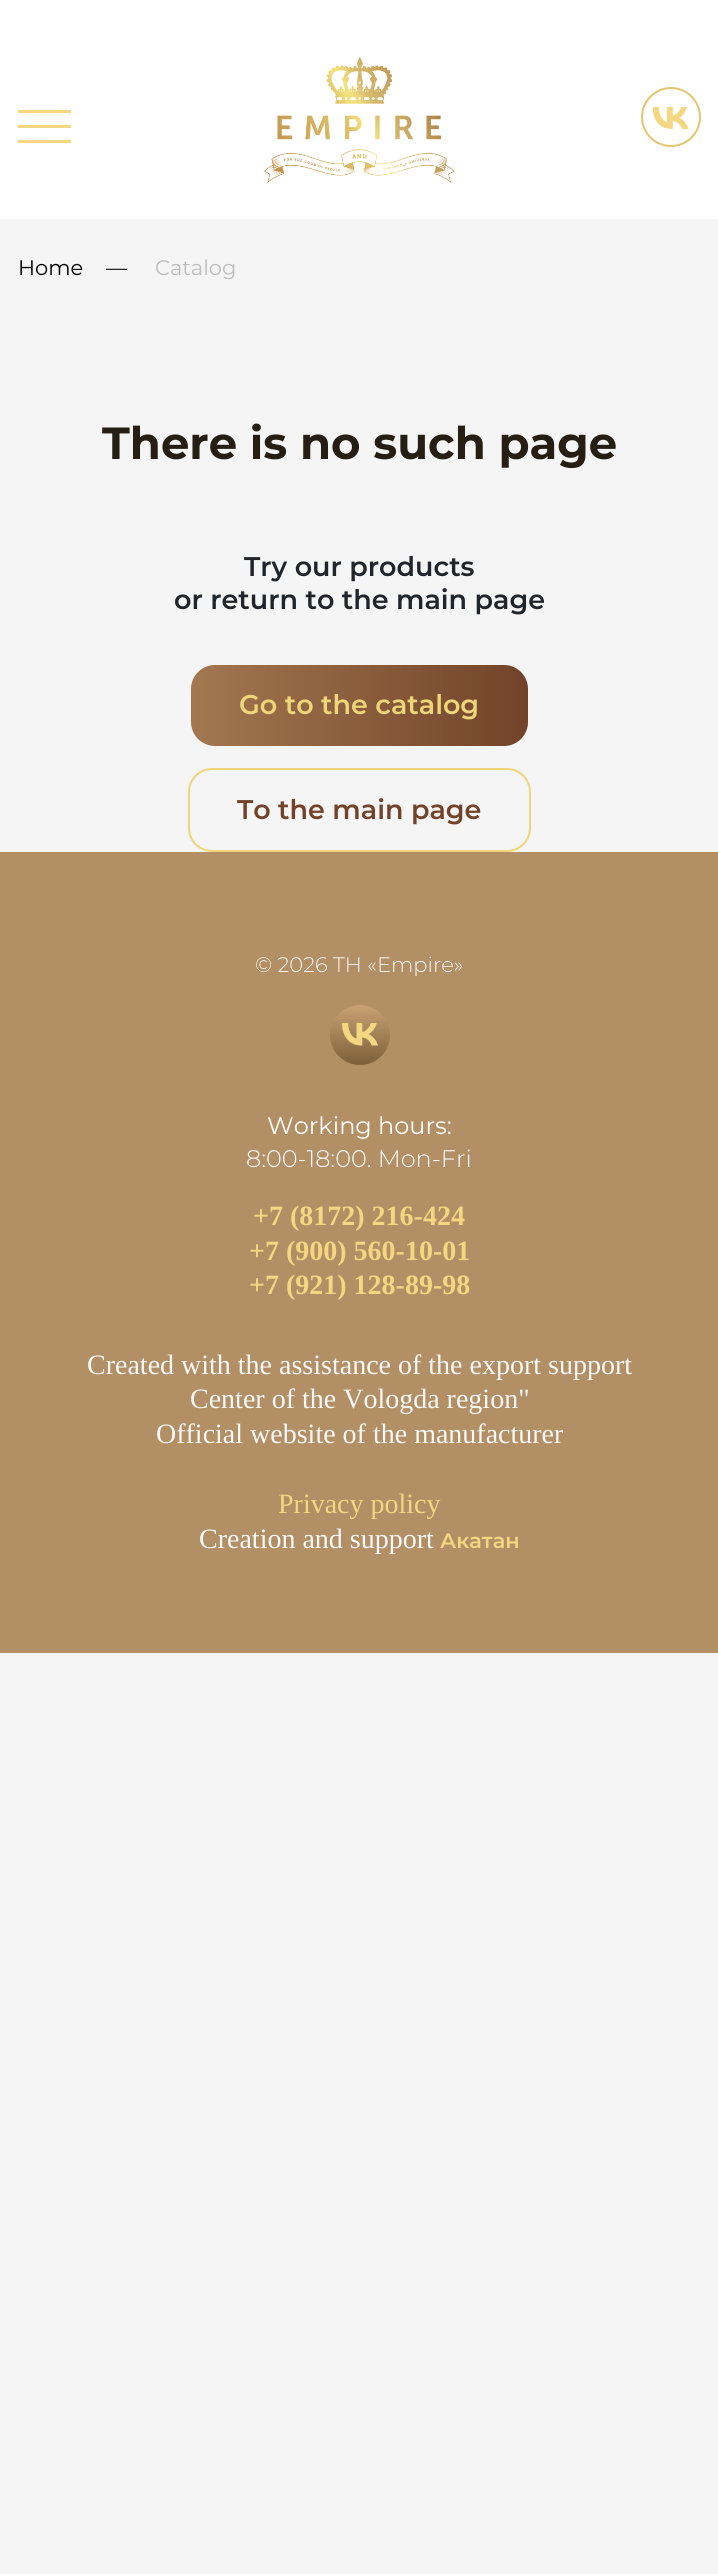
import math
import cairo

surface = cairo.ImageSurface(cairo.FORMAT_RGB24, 718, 2574)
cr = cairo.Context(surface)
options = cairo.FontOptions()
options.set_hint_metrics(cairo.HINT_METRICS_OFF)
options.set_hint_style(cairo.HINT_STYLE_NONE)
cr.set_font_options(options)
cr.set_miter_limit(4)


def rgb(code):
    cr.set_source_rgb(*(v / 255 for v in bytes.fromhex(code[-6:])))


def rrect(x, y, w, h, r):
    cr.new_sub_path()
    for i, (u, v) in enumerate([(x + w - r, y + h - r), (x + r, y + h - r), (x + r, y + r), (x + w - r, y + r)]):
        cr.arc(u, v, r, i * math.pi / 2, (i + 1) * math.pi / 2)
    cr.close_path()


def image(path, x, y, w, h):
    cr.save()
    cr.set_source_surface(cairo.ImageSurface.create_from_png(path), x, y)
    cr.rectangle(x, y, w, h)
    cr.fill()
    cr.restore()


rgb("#f5f5f5")
cr.paint()
for x, y, w, h, color in [
    (0, 0, 718, 219, "#ffffff"),
    (18, 125, 53, 3, "#f5d681"),
    (18, 110, 53, 3, "#f5d681"),
    (18, 140, 53, 3, "#f5d681"),
]:
    rgb(color)
    cr.rectangle(x, y, w, h)
    cr.fill()
image("img/1.png", 263, 56, 192, 127)
cr.arc(671, 117, 29, 0, 2 * math.pi)
rgb("#e4c56d")
cr.stroke()
image("img/2.png", 653, 107, 36, 22)
gradient = cairo.LinearGradient(528, 705, 191, 705)
gradient.add_color_stop_rgba(0, 0.447, 0.263, 0.161, 1)
gradient.add_color_stop_rgba(1, 0.639, 0.467, 0.314, 1)
cr.set_source(gradient)
rrect(191, 665, 337, 81, 24)
cr.fill()
rrect(189, 769, 341, 82, 23)
rgb("#f0d579")
cr.stroke()
rgb("#b28f64")
cr.rectangle(0, 852, 718, 801)
cr.fill()
gradient = cairo.LinearGradient(360, 1005, 360, 1065)
gradient.add_color_stop_rgba(0, 0.784, 0.635, 0.459, 1)
gradient.add_color_stop_rgba(1, 0.49, 0.376, 0.22, 1)
cr.set_source(gradient)
cr.arc(360, 1035, 30, 0, 2 * math.pi)
cr.fill()
image("img/3.png", 342, 1023, 36, 23)
cr.select_font_face("Montserrat")
cr.set_font_size(21)
rgb("#000000")
cr.move_to(18, 275)
cr.show_text("Home")
cr.move_to(106, 275)
cr.show_text("—")
rgb("#bdbdbd")
cr.move_to(155, 275)
cr.show_text("Catalog")
cr.select_font_face("Montserrat", cairo.FONT_SLANT_NORMAL, cairo.FONT_WEIGHT_BOLD)
cr.set_font_size(45)
rgb("#261e12")
cr.move_to(102, 459)
cr.show_text("There is no such page")
cr.select_font_face("Montserrat SemiBold")
cr.set_font_size(27)
rgb("#212529")
cr.move_to(244, 576)
cr.show_text("Try our products")
cr.move_to(174, 609)
cr.show_text("or return to the main page")
rgb("#f0d579")
cr.move_to(239, 714)
cr.show_text("Go to the catalog")
rgb("#724329")
cr.move_to(237, 819)
cr.show_text("To the main page")
cr.select_font_face("Montserrat Light")
cr.set_font_size(21)
rgb("#f9f9f9")
cr.move_to(255, 972)
cr.show_text("© 2026 TH «Empire»")
cr.select_font_face("Montserrat")
cr.set_font_size(24)
rgb("#ffffff")
cr.move_to(267, 1134)
cr.show_text("Working hours:")
cr.select_font_face("Montserrat Light")
cr.move_to(246, 1167)
cr.show_text("8:00-18:00. Mon-Fri")
cr.select_font_face("Liberation Serif", cairo.FONT_SLANT_NORMAL, cairo.FONT_WEIGHT_BOLD)
cr.set_font_size(28)
rgb("#f5d681")
for x, y, s in [
    (253, 1225, "+7 (8172) 216-424"),
    (249, 1260, "+7 (900) 560-10-01"),
    (249, 1294, "+7 (921) 128-89-98"),
]:
    cr.move_to(x, y)
    cr.show_text(s)
cr.select_font_face("Liberation Serif")
rgb("#f9f9f9")
for x, y, s in [
    (87, 1374, "Created with the assistance of the export support"),
    (190, 1408, "Center of the Vologda region\""),
    (156, 1443, "Official website of the manufacturer"),
]:
    cr.move_to(x, y)
    cr.show_text(s)
rgb("#f5d681")
cr.move_to(278, 1513)
cr.show_text("Privacy policy")
rgb("#f9f9f9")
cr.move_to(199, 1548)
cr.show_text("Creation and support")
cr.select_font_face("Montserrat SemiBold")
cr.set_font_size(21)
rgb("#f5d681")
cr.move_to(440, 1548)
cr.show_text("Акатан")
surface.write_to_png("page.png")
